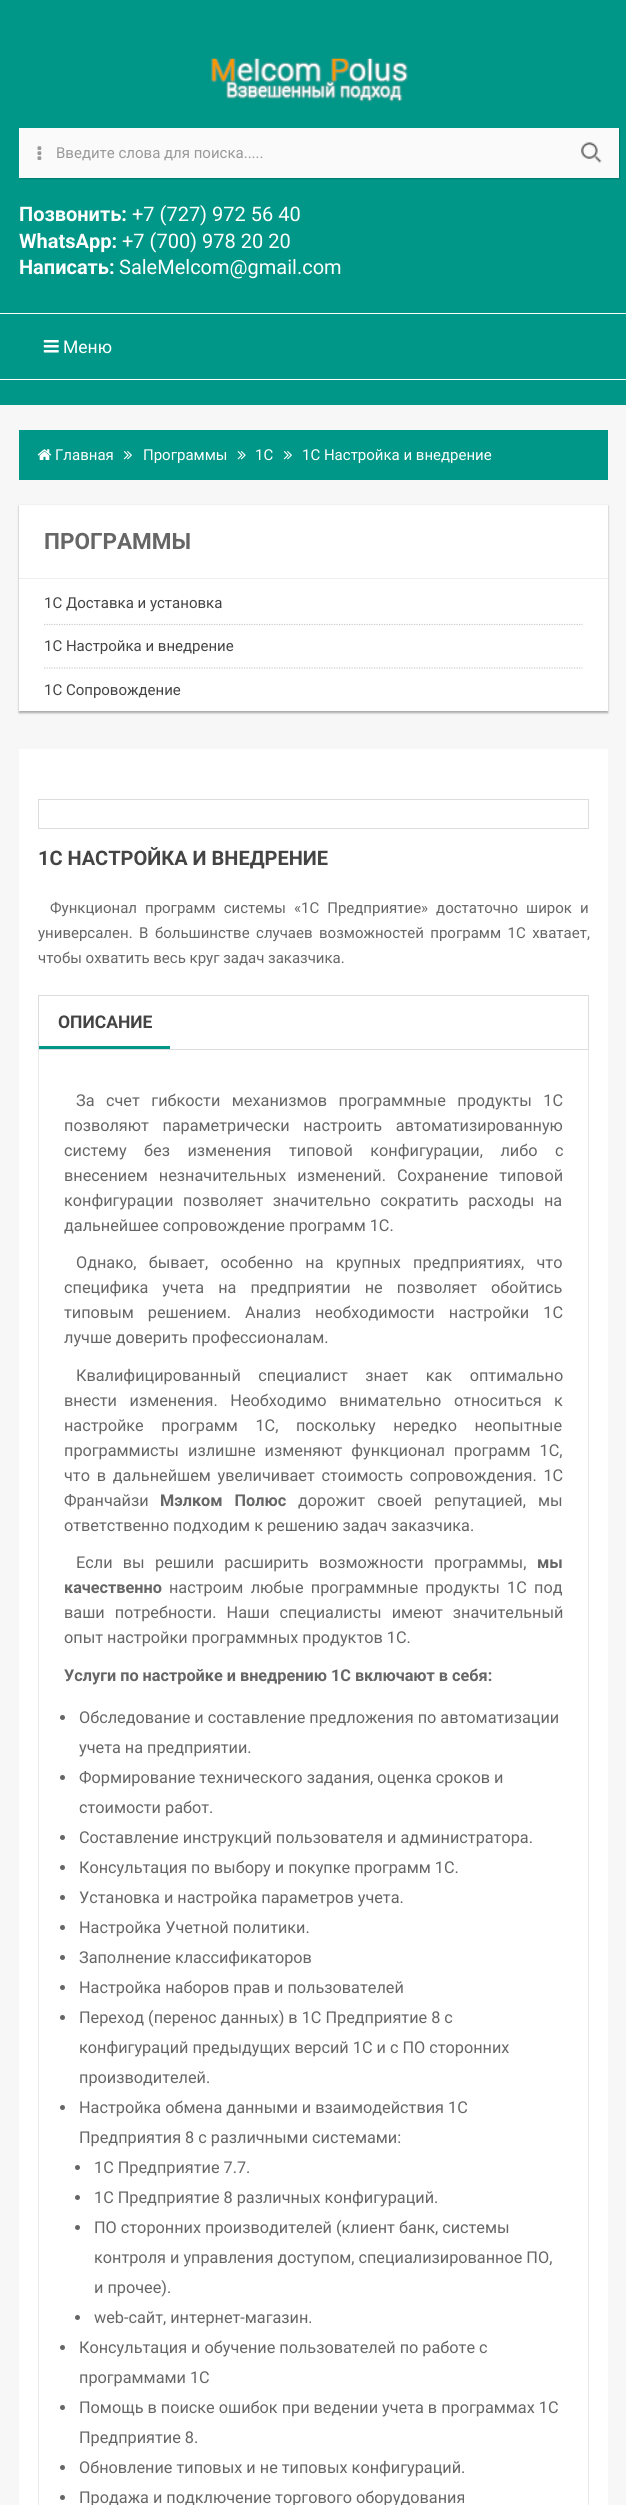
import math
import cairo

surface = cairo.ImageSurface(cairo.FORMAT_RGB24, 626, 2505)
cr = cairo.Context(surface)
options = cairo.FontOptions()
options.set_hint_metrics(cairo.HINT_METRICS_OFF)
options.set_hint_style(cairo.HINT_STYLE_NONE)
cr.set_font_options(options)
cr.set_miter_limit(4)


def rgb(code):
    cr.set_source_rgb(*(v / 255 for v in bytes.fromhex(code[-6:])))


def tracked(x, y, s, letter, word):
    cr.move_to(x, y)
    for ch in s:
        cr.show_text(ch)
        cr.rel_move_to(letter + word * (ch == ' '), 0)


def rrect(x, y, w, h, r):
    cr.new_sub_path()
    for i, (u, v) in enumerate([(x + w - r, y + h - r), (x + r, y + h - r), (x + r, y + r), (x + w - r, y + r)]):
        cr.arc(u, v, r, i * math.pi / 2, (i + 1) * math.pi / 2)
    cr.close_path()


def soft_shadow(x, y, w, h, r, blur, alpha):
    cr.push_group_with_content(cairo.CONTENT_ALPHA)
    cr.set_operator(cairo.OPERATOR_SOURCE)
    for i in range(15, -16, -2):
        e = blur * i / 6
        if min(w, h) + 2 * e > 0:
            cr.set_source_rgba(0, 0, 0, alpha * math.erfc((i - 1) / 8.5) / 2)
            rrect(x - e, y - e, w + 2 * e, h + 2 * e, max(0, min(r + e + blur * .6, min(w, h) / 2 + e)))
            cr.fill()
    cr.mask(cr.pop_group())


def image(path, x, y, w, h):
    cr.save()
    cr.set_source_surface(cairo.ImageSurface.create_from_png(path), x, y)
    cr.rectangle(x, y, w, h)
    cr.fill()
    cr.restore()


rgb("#f7f7f7")
cr.paint()
rgb("#009788")
cr.rectangle(0, 0, 626, 313)
cr.fill()
image("img/1.png", 211, 58, 197, 44)
rgb("#000000")
soft_shadow(20, 129, 600, 50, 0, 0.5, 0.2)
rgb("#fafafa")
cr.rectangle(19, 128, 600, 50)
cr.fill()
image("img/2.png", 37, 146, 5, 14)
image("img/3.png", 581, 142, 21, 21)
for x, y, w, h, color in [
    (0, 314, 626, 91, "#009788"),
    (0, 313, 626, 1, "#ffffff"),
    (0, 379, 626, 1, "#ffffff"),
]:
    rgb(color)
    cr.rectangle(x, y, w, h)
    cr.fill()
image("img/4.png", 43, 340, 16, 13)
rgb("#009788")
cr.rectangle(19, 430, 589, 50)
cr.fill()
image("img/5.png", 37, 449, 15, 11)
image("img/6.png", 123, 451, 9, 9)
image("img/7.png", 237, 451, 9, 9)
image("img/6.png", 283, 451, 9, 9)
rgb("#aaaaaa")
soft_shadow(19, 506, 589, 207, 0, 1, 1)
rgb("#ffffff")
cr.rectangle(19, 505, 589, 206)
cr.fill()
rgb("#eeeeee")
cr.rectangle(19, 578, 589, 1)
cr.fill()
cr.new_path()
cr.move_to(44, 624.5)
cr.line_to(582.5, 624.5)
rgb("#cccccc")
cr.set_line_width(1.2)
cr.set_dash([1.25, 1.25])
cr.stroke()
cr.new_path()
cr.move_to(44, 668)
cr.line_to(582.5, 668)
cr.stroke()
rgb("#ffffff")
cr.rectangle(19, 749, 589, 1756)
cr.fill()
cr.rectangle(38.5, 799.5, 550, 29)
rgb("#dddddd")
cr.set_line_width(1)
cr.set_dash([])
cr.stroke()
cr.rectangle(38.5, 995.5, 550, 54)
cr.stroke()
for x, y, w, h, color in [
    (39, 1046, 131, 3, "#009788"),
    (588, 1050, 1, 1455, "#e9e9e9"),
    (38, 1050, 1, 1455, "#e9e9e9"),
]:
    rgb(color)
    cr.rectangle(x, y, w, h)
    cr.fill()
rgb("#666666")
cr.arc(62.5, 1717.5, 2.5, 0, 2 * math.pi)
cr.fill()
cr.arc(62.5, 1777.5, 2.5, 0, 2 * math.pi)
cr.fill()
cr.arc(62.5, 1837.5, 2.5, 0, 2 * math.pi)
cr.fill()
cr.arc(62.5, 1867.5, 2.5, 0, 2 * math.pi)
cr.fill()
cr.arc(62.5, 1897.5, 2.5, 0, 2 * math.pi)
cr.fill()
cr.arc(62.5, 1927.5, 2.5, 0, 2 * math.pi)
cr.fill()
cr.arc(62.5, 1957.5, 2.5, 0, 2 * math.pi)
cr.fill()
cr.arc(62.5, 1987.5, 2.5, 0, 2 * math.pi)
cr.fill()
cr.arc(62.5, 2017.5, 2.5, 0, 2 * math.pi)
cr.fill()
cr.arc(62.5, 2107.5, 2.5, 0, 2 * math.pi)
cr.fill()
cr.arc(77.5, 2167.5, 2.5, 0, 2 * math.pi)
cr.fill()
cr.arc(77.5, 2197.5, 2.5, 0, 2 * math.pi)
cr.fill()
cr.arc(77.5, 2227.5, 2.5, 0, 2 * math.pi)
cr.fill()
cr.arc(77.5, 2317.5, 2.5, 0, 2 * math.pi)
cr.fill()
cr.arc(62.5, 2347.5, 2.5, 0, 2 * math.pi)
cr.fill()
cr.arc(62.5, 2407.5, 2.5, 0, 2 * math.pi)
cr.fill()
cr.arc(62.5, 2467.5, 2.5, 0, 2 * math.pi)
cr.fill()
cr.arc(62.5, 2497.5, 2.5, 0, 2 * math.pi)
cr.fill()
cr.select_font_face("Roboto")
cr.set_font_size(15)
rgb("#999999")
cr.move_to(56, 158)
cr.show_text("Введите слова для поиска.....")
cr.select_font_face("Roboto", cairo.FONT_SLANT_NORMAL, cairo.FONT_WEIGHT_BOLD)
cr.set_font_size(20)
rgb("#ffffff")
cr.move_to(19, 221)
cr.show_text("Позвонить:")
cr.select_font_face("Roboto")
cr.move_to(132, 221)
cr.show_text("+7 (727) 972 56 40")
cr.select_font_face("Roboto", cairo.FONT_SLANT_NORMAL, cairo.FONT_WEIGHT_BOLD)
cr.move_to(19, 248)
cr.show_text("WhatsApp:")
cr.select_font_face("Roboto")
cr.move_to(122, 248)
cr.show_text("+7 (700) 978 20 20")
cr.select_font_face("Roboto", cairo.FONT_SLANT_NORMAL, cairo.FONT_WEIGHT_BOLD)
cr.move_to(19, 274)
cr.show_text("Написать:")
cr.select_font_face("Roboto")
cr.move_to(119, 274)
cr.show_text("SaleMelcom@gmail.com")
cr.set_font_size(17.5)
cr.move_to(63, 353)
cr.show_text("Меню")
cr.set_font_size(15)
for x, y, s in [
    (55, 460, "Главная"),
    (143, 460, "Программы"),
    (255, 460, "1С"),
    (302, 460, "1С Настройка и внедрение"),
]:
    cr.move_to(x, y)
    cr.show_text(s)
cr.select_font_face("Roboto", cairo.FONT_SLANT_NORMAL, cairo.FONT_WEIGHT_BOLD)
cr.set_font_size(22.5)
rgb("#666666")
cr.move_to(44, 549)
cr.show_text("ПРОГРАММЫ")
cr.select_font_face("Roboto")
cr.set_font_size(15)
rgb("#444444")
for x, y, s in [
    (44, 608, "1С Доставка и установка"),
    (44, 651, "1С Настройка и внедрение"),
    (44, 695, "1С Сопровождение"),
]:
    cr.move_to(x, y)
    cr.show_text(s)
cr.select_font_face("Roboto", cairo.FONT_SLANT_NORMAL, cairo.FONT_WEIGHT_BOLD)
cr.set_font_size(20)
cr.move_to(38, 865)
cr.show_text("1С НАСТРОЙКА И ВНЕДРЕНИЕ")
cr.select_font_face("Roboto")
cr.set_font_size(15)
rgb("#666666")
tracked(50, 913, "Функционал программ системы «1С Предприятие» достаточно широк и", 0, 4.25)
tracked(38, 938, "универсален. В большинстве случаев возможностей программ 1С хватает,", 0, 2.75)
cr.move_to(38, 963)
cr.show_text("чтобы охватить весь круг задач заказчика.")
cr.select_font_face("Roboto", cairo.FONT_SLANT_NORMAL, cairo.FONT_WEIGHT_BOLD)
cr.set_font_size(17.5)
rgb("#444444")
cr.move_to(58, 1028)
cr.show_text("ОПИСАНИЕ")
cr.select_font_face("Roboto")
cr.set_font_size(16.25)
rgb("#666666")
tracked(76, 1106, "За счет гибкости механизмов программные продукты 1С", 0, 7.5)
tracked(64, 1131, "позволяют параметрически настроить автоматизированную", 0, 9.5)
tracked(64, 1156, "систему без изменения типовой конфигурации, либо с", 0, 13.5)
tracked(64, 1181, "внесением незначительных изменений. Сохранение типовой", 0, 7)
tracked(64, 1206, "конфигурации позволяет значительно сократить расходы на", 0, 5.5)
cr.move_to(64, 1231)
cr.show_text("дальнейшее сопровождение программ 1С.")
tracked(76, 1268, "Однако, бывает, особенно на крупных предприятиях, что", 0, 8.25)
tracked(64, 1293, "специфика учета на предприятии не позволяет обойтись", 0, 10)
tracked(64, 1318, "типовым решением. Анализ необходимости настройки 1С", 0, 10)
cr.move_to(64, 1343)
cr.show_text("лучше доверить профессионалам.")
tracked(76, 1381, "Квалифицированный специалист знает как оптимально", 0, 13.5)
tracked(64, 1406, "внести изменения. Необходимо внимательно относиться к", 0, 8.5)
tracked(64, 1431, "настройке программ 1С, поскольку нередко неопытные", 0, 13.5)
tracked(64, 1456, "программисты излишне изменяют функционал программ 1С,", 0, 5)
tracked(64, 1481, "что в дальнейшем увеличивает стоимость сопровождения. 1С", 0, 2.75)
cr.move_to(64, 1506)
cr.show_text("Франчайзи")
cr.select_font_face("Roboto", cairo.FONT_SLANT_NORMAL, cairo.FONT_WEIGHT_BOLD)
tracked(160, 1506, "Мэлком Полюс", 0, 8)
cr.select_font_face("Roboto")
tracked(298, 1506, "дорожит своей репутацией, мы", 0, 8)
cr.move_to(64, 1531)
cr.show_text("ответственно подходим к решению задач заказчика.")
tracked(76, 1568, "Если вы решили расширить возможности программы,", 0, 6.25)
cr.select_font_face("Roboto", cairo.FONT_SLANT_NORMAL, cairo.FONT_WEIGHT_BOLD)
cr.move_to(537, 1568)
cr.show_text("мы")
cr.move_to(64, 1593)
cr.show_text("качественно")
cr.select_font_face("Roboto")
tracked(169, 1593, "настроим любые программные продукты 1С под", 0, 3.25)
tracked(64, 1618, "ваши потребности. Наши специалисты имеют значительный", 0, 6)
cr.move_to(64, 1643)
cr.show_text("опыт настройки программных продуктов 1С.")
cr.select_font_face("Roboto", cairo.FONT_SLANT_NORMAL, cairo.FONT_WEIGHT_BOLD)
cr.move_to(64, 1681)
cr.show_text("Услуги по настройке и внедрению 1С включают в себя:")
cr.select_font_face("Roboto")
for x, y, s in [
    (79, 1723, "Обследование и составление предложения по автоматизации"),
    (79, 1753, "учета на предприятии."),
    (79, 1783, "Формирование технического задания, оценка сроков и"),
    (79, 1813, "стоимости работ."),
    (79, 1843, "Составление инструкций пользователя и администратора."),
    (79, 1873, "Консультация по выбору и покупке программ 1С."),
    (79, 1903, "Установка и настройка параметров учета."),
    (79, 1933, "Настройка Учетной политики."),
    (79, 1963, "Заполнение классификаторов"),
    (79, 1993, "Настройка наборов прав и пользователей"),
    (79, 2023, "Переход (перенос данных) в 1С Предприятие 8 с"),
    (79, 2053, "конфигураций предыдущих версий 1С и с ПО сторонних"),
    (79, 2083, "производителей."),
    (79, 2113, "Настройка обмена данными и взаимодействия 1С"),
    (79, 2143, "Предприятия 8 с различными системами:"),
    (94, 2173, "1С Предприятие 7.7."),
    (94, 2203, "1С Предприятие 8 различных конфигураций."),
    (94, 2233, "ПО сторонних производителей (клиент банк, системы"),
    (94, 2263, "контроля и управления доступом, специализированное ПО,"),
    (94, 2293, "и прочее)."),
    (94, 2323, "web-сайт, интернет-магазин."),
    (79, 2353, "Консультация и обучение пользователей по работе с"),
    (79, 2383, "программами 1С"),
    (79, 2413, "Помощь в поиске ошибок при ведении учета в программах 1С"),
    (79, 2443, "Предприятие 8."),
    (79, 2473, "Обновление типовых и не типовых конфигураций."),
    (79, 2503, "Продажа и подключение торгового оборудования"),
]:
    cr.move_to(x, y)
    cr.show_text(s)
surface.write_to_png("page.png")
